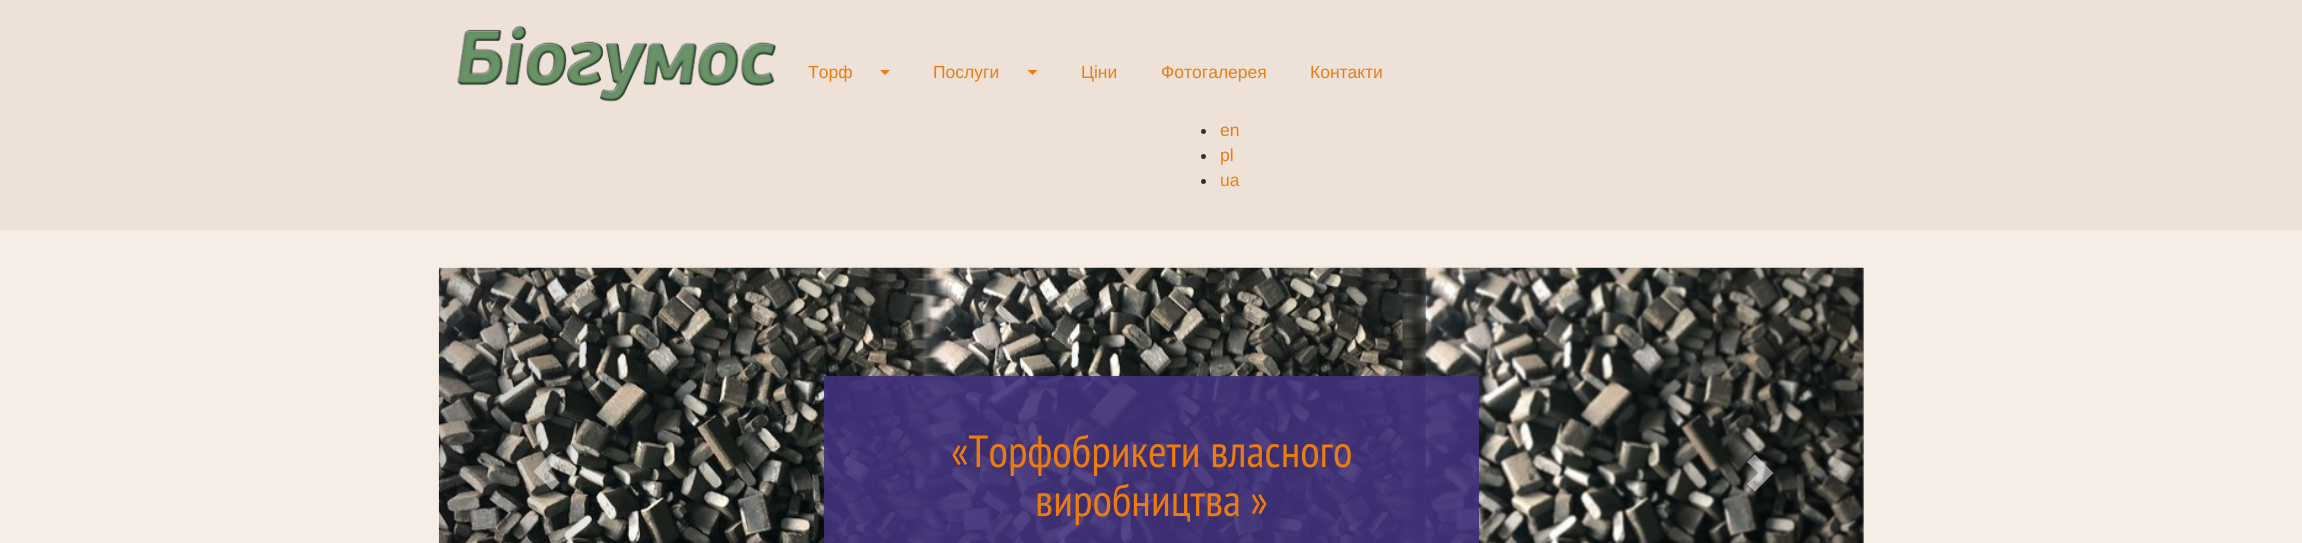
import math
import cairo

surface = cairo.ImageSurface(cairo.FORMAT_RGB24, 2302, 543)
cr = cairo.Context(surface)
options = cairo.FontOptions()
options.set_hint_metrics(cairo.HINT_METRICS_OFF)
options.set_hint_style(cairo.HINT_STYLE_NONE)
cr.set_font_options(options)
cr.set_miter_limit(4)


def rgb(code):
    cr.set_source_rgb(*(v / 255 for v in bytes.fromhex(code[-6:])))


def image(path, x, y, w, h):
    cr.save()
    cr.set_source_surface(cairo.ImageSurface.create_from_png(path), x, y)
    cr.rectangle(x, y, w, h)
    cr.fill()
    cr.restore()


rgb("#eee1d8")
cr.paint()
image("img/1.png", 457, 26, 320, 76)
rgb("#ec7c0e")
cr.new_path()
cr.move_to(880, 70)
cr.line_to(890, 70)
cr.line_to(885, 75)
cr.close_path()
cr.fill()
cr.new_path()
cr.move_to(1027.5, 70)
cr.line_to(1037.5, 70)
cr.line_to(1032.5, 75)
cr.close_path()
cr.fill()
rgb("#333333")
cr.arc(1203.5, 131.5, 2.5, 0, 2 * math.pi)
cr.fill()
cr.arc(1203.5, 156.5, 2.5, 0, 2 * math.pi)
cr.fill()
cr.arc(1203.5, 181.5, 2.5, 0, 2 * math.pi)
cr.fill()
rgb("#f6ede6")
cr.rectangle(0, 230, 2302, 313)
cr.fill()
image("img/2.png", 438, 267, 1426, 276)
cr.set_source_rgba(1, 1, 1, 0.5)
cr.new_path()
cr.move_to(533.5, 471.5)
cr.line_to(552, 490)
cr.line_to(559.5, 482.5)
cr.line_to(548, 471)
cr.line_to(559.5, 460)
cr.line_to(552, 452.5)
cr.close_path()
cr.fill()
cr.set_source_rgba(0.255, 0.192, 0.486, 0.9)
cr.rectangle(824, 376, 655, 167)
cr.fill()
gradient = cairo.LinearGradient(1650, 471, 1864, 471)
gradient.add_color_stop_rgba(0, 0, 0, 0, 0)
gradient.add_color_stop_rgba(1, 0, 0, 0, 0.25)
cr.set_source(gradient)
cr.rectangle(1668, 268, 196, 275)
cr.fill()
cr.set_source_rgba(1, 1, 1, 0.5)
cr.new_path()
cr.move_to(1747, 484)
cr.line_to(1758.5, 473)
cr.line_to(1747, 462)
cr.line_to(1755, 454.5)
cr.line_to(1773.5, 473)
cr.line_to(1755, 491.5)
cr.close_path()
cr.fill()
cr.select_font_face("Liberation Sans")
cr.set_font_size(17.5)
rgb("#ec7c0e")
for x, y, s in [
    (808, 78, "Торф"),
    (933, 78, "Послуги"),
    (1081, 78, "Ціни"),
    (1161, 78, "Фотогалерея"),
    (1310, 78, "Контакти"),
    (1220, 136, "en"),
    (1220, 161, "pl"),
    (1220, 186, "ua"),
]:
    cr.move_to(x, y)
    cr.show_text(s)
cr.select_font_face("PT Sans Narrow")
cr.set_font_size(45)
cr.move_to(951, 467)
cr.show_text("«Торфобрикети власного")
cr.move_to(1035, 516)
cr.show_text("виробництва »")
surface.write_to_png("page.png")
